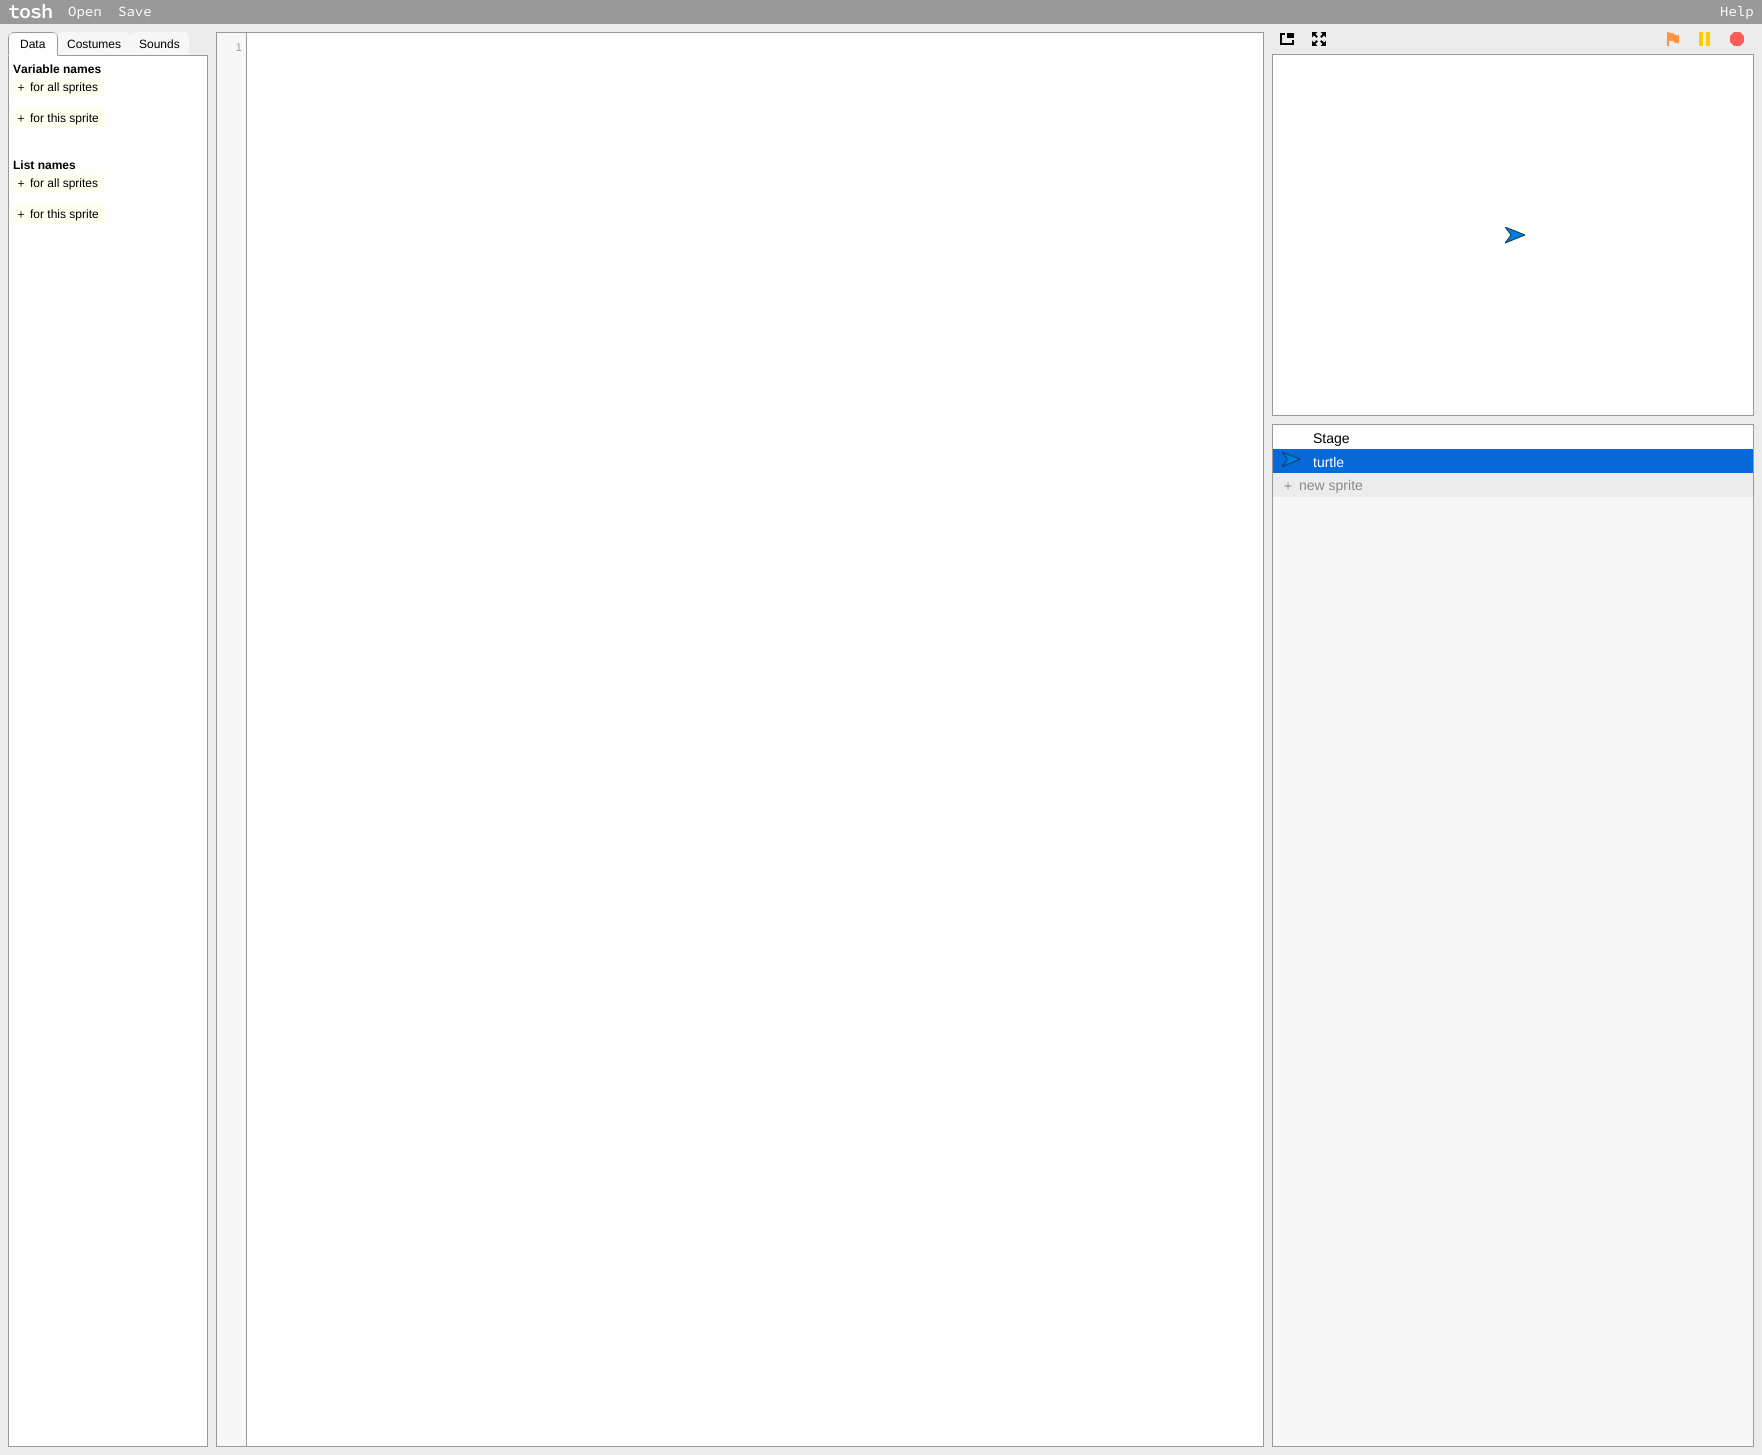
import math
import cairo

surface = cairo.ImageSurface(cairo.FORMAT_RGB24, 1762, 1455)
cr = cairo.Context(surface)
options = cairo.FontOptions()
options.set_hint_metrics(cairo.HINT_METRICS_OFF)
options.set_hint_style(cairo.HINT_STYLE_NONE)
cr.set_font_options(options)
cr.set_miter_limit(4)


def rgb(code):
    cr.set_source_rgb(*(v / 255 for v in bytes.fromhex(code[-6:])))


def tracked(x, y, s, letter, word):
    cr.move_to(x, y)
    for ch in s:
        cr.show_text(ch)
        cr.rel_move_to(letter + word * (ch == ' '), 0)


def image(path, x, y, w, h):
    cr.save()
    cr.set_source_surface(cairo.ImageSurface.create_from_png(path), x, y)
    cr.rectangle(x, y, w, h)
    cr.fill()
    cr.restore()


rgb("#ececec")
cr.paint()
rgb("#999999")
cr.rectangle(0, 0, 1762, 24)
cr.fill()
rgb("#f7f7f7")
cr.new_path()
cr.move_to(64, 32)
cr.line_to(124, 32)
cr.curve_to(127.5, 32, 130, 34.5, 130, 38)
cr.line_to(130, 56)
cr.line_to(58, 56)
cr.line_to(58, 38)
cr.curve_to(58, 34.5, 60.5, 32, 64, 32)
cr.close_path()
cr.fill()
cr.new_path()
cr.move_to(136, 32)
cr.line_to(183, 32)
cr.curve_to(186.5, 32, 189, 34.5, 189, 38)
cr.line_to(189, 56)
cr.line_to(130, 56)
cr.line_to(130, 38)
cr.curve_to(130, 34.5, 132.5, 32, 136, 32)
cr.close_path()
cr.fill()
rgb("#ffffff")
cr.rectangle(8.5, 55.5, 199, 1391)
cr.fill_preserve()
rgb("#999999")
cr.set_line_width(1)
cr.stroke()
rgb("#ffffff")
cr.new_path()
cr.move_to(14, 32)
cr.line_to(52, 32)
cr.curve_to(55.5, 32, 58, 34.5, 58, 38)
cr.line_to(58, 56)
cr.line_to(8, 56)
cr.line_to(8, 38)
cr.curve_to(8, 34.5, 10.5, 32, 14, 32)
cr.close_path()
cr.fill()
rgb("#999999")
cr.new_path()
cr.move_to(14, 32)
cr.curve_to(12, 32, 11, 33, 10, 34)
cr.curve_to(11, 34, 12, 33, 14, 33)
cr.line_to(52, 33)
cr.curve_to(54, 33, 55, 34, 56, 34)
cr.curve_to(55, 33, 54, 32, 52, 32)
cr.close_path()
cr.move_to(58, 56)
cr.line_to(58, 38)
cr.curve_to(58, 36.5, 57, 35, 56, 34)
cr.line_to(55.5, 34.5)
cr.curve_to(56.5, 35, 57, 36.5, 57, 38)
cr.line_to(57, 55)
cr.close_path()
cr.fill()
cr.new_path()
cr.move_to(8, 56)
cr.line_to(9, 55)
cr.line_to(9, 38)
cr.curve_to(9, 36.5, 9.5, 35, 10.5, 34.5)
cr.line_to(10, 34)
cr.curve_to(9, 35, 8, 36.5, 8, 38)
cr.close_path()
cr.fill()
rgb("#ffffff")
cr.rectangle(247, 33, 1016, 1413)
cr.fill()
cr.rectangle(216.5, 32.5, 1047, 1414)
rgb("#999999")
cr.stroke()
for x, y, w, h, color in [
    (217, 33, 29, 1413, "#f7f7f7"),
    (246, 33, 1, 1413, "#999999"),
    (13, 78, 91, 19, "#fffeef"),
    (13, 109, 92, 19, "#fffeef"),
    (13, 174, 91, 19, "#fffeef"),
    (13, 205, 92, 19, "#fffeef"),
    (1273, 497, 480, 949, "#f7f7f7"),
]:
    rgb(color)
    cr.rectangle(x, y, w, h)
    cr.fill()
cr.rectangle(1272.5, 424.5, 481, 1022)
rgb("#999999")
cr.stroke()
rgb("#ffffff")
cr.rectangle(1273, 425, 480, 24)
cr.fill()
rgb("#0669d9")
cr.rectangle(1273, 449, 480, 24)
cr.fill()
image("img/1.png", 1282, 452, 19, 16)
image("img/2.png", 1280, 33, 14, 12)
image("img/3.png", 1312, 32, 14, 14)
image("img/4.png", 1667, 32, 12, 14)
image("img/5.png", 1699, 32, 11, 14)
image("img/6.png", 1730, 32, 14, 14)
cr.rectangle(1272.5, 54.5, 481, 361)
rgb("#999999")
cr.stroke()
rgb("#ffffff")
cr.rectangle(1273, 55, 480, 360)
cr.fill()
image("img/7.png", 1505, 227, 20, 17)
cr.select_font_face("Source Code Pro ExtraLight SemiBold")
cr.set_font_size(20)
tracked(8, 18, "tosh", -1, 0)
cr.select_font_face("Source Code Pro ExtraLight")
cr.set_font_size(14)
for x, y, s in [
    (68, 16, "Open"),
    (118, 16, "Save"),
    (1720, 16, "Help"),
]:
    cr.move_to(x, y)
    cr.show_text(s)
cr.select_font_face("Liberation Sans")
cr.set_font_size(12)
rgb("#000000")
for x, y, s in [
    (20, 48, "Data"),
    (67, 48, "Costumes"),
    (139, 48, "Sounds"),
]:
    cr.move_to(x, y)
    cr.show_text(s)
cr.select_font_face("Source Code Pro ExtraLight")
rgb("#999999")
cr.move_to(235, 51)
cr.show_text("1")
cr.select_font_face("Liberation Sans", cairo.FONT_SLANT_NORMAL, cairo.FONT_WEIGHT_BOLD)
rgb("#000000")
cr.move_to(13, 73)
cr.show_text("Variable names")
cr.select_font_face("WenQuanYi Zen Hei Medium")
cr.move_to(15, 91)
cr.show_text("＋")
cr.select_font_face("Liberation Sans")
cr.move_to(30, 91)
cr.show_text("for all sprites")
cr.select_font_face("WenQuanYi Zen Hei Medium")
cr.move_to(15, 122)
cr.show_text("＋")
cr.select_font_face("Liberation Sans")
cr.move_to(30, 122)
cr.show_text("for this sprite")
cr.select_font_face("Liberation Sans", cairo.FONT_SLANT_NORMAL, cairo.FONT_WEIGHT_BOLD)
cr.move_to(13, 169)
cr.show_text("List names")
cr.select_font_face("WenQuanYi Zen Hei Medium")
cr.move_to(15, 187)
cr.show_text("＋")
cr.select_font_face("Liberation Sans")
cr.move_to(30, 187)
cr.show_text("for all sprites")
cr.select_font_face("WenQuanYi Zen Hei Medium")
cr.move_to(15, 218)
cr.show_text("＋")
cr.select_font_face("Liberation Sans")
cr.move_to(30, 218)
cr.show_text("for this sprite")
cr.set_font_size(14)
cr.move_to(1313, 443)
cr.show_text("Stage")
rgb("#ffffff")
cr.move_to(1313, 467)
cr.show_text("turtle")
cr.select_font_face("WenQuanYi Zen Hei Medium")
rgb("#888888")
cr.move_to(1281, 490)
cr.show_text("＋")
cr.select_font_face("Liberation Sans")
cr.move_to(1299, 490)
cr.show_text("new sprite")
surface.write_to_png("page.png")
